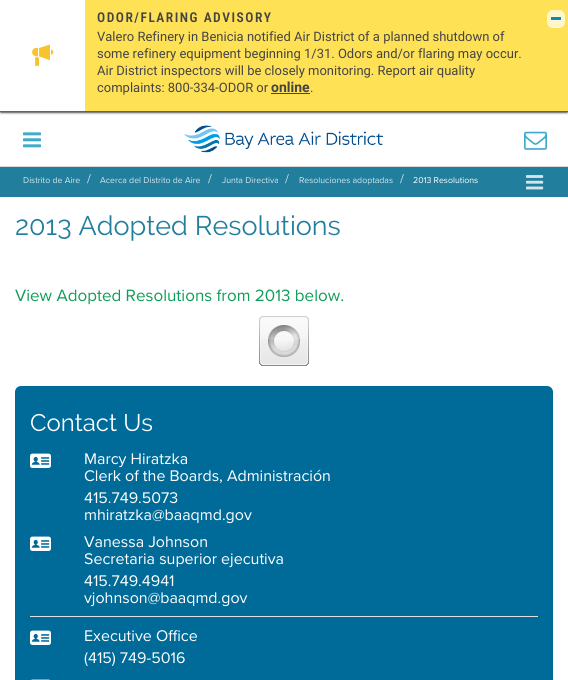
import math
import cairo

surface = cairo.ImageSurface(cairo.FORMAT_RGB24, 568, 680)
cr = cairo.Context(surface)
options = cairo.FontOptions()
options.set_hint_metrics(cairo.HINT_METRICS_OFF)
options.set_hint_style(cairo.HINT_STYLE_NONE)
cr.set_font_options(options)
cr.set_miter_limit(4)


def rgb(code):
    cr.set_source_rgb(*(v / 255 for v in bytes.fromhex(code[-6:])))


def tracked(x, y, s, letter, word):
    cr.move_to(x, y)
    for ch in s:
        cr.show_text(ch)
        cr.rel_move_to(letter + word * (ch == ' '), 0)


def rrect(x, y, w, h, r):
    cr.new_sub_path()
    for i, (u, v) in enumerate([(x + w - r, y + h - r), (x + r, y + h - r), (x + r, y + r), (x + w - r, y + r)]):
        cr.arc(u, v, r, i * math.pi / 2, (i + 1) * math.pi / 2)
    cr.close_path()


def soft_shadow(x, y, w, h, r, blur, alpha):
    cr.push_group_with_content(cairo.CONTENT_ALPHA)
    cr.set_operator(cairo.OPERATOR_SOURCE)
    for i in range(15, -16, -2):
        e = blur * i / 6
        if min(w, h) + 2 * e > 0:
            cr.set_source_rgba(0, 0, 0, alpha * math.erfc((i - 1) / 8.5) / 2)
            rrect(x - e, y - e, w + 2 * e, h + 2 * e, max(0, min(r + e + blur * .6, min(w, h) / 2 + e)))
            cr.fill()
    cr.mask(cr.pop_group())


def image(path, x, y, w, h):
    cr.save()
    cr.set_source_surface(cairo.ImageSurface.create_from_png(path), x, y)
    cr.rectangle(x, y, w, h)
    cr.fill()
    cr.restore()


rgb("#ffffff")
cr.paint()
rgb("#000000")
soft_shadow(1, 3, 566, 110, 0, 0.5, 0.25)
soft_shadow(0, 1, 568, 112, 0, 0.5, 0.25)
soft_shadow(0, 1, 568, 112, 0, 1.5, 0.25)
for x, y, w, h, color in [
    (85, 0, 483, 111, "#ffe156"),
    (0, 111, 568, 1, "#736527"),
    (0, 0, 85, 111, "#ffffff"),
]:
    rgb(color)
    cr.rectangle(x, y, w, h)
    cr.fill()
image("img/1.png", 32, 44, 22, 22)
rgb("#444444")
cr.rectangle(271, 93, 39, 1)
cr.fill()
rgb("#fff6cc")
rrect(547, 10, 18, 18, 6)
cr.fill()
rgb("#008eb8")
cr.rectangle(551, 17, 10, 3)
cr.fill()
rgb("#d9d9d9")
cr.rectangle(0, 166, 568, 1)
cr.fill()
image("img/2.png", 23, 132, 18, 16)
image("img/3.png", 184, 125, 199, 28)
image("img/4.png", 524, 131, 23, 19)
rgb("#217e9d")
cr.rectangle(0, 167, 568, 30)
cr.fill()
image("img/5.png", 526, 175, 18, 15)
image("img/6.png", 259, 316, 50, 50)
rgb("#006a98")
rrect(15, 386, 538, 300, 6)
cr.fill()
image("img/7.png", 30, 453, 21, 15)
image("img/7.png", 30, 536, 21, 15)
rgb("#e0e0e0")
cr.rectangle(30, 616, 508, 1)
cr.fill()
image("img/7.png", 30, 630, 21, 15)
image("img/8.png", 31, 679, 19, 1)
cr.select_font_face("Roboto Condensed SemiBold")
cr.set_font_size(13.5)
rgb("#444444")
tracked(97, 22, "ODOR/FLARING ADVISORY", 1.5, 0)
cr.select_font_face("Roboto")
cr.set_font_size(13)
for x, y, s in [
    (97, 41, "Valero Refinery in Benicia notified Air District of a planned shutdown of"),
    (97, 58, "some refinery equipment beginning 1/31. Odors and/or flaring may occur."),
    (97, 75, "Air District inspectors will be closely monitoring. Report air quality"),
    (97, 92, "complaints: 800-334-ODOR or"),
]:
    cr.move_to(x, y)
    cr.show_text(s)
cr.select_font_face("Roboto", cairo.FONT_SLANT_NORMAL, cairo.FONT_WEIGHT_BOLD)
cr.set_font_size(14)
cr.move_to(271, 92)
cr.show_text("online")
cr.select_font_face("Roboto")
cr.set_font_size(13)
cr.move_to(310, 92)
cr.show_text(".")
cr.select_font_face("Proxima Nova")
cr.set_font_size(8.75)
rgb("#d3e5eb")
cr.move_to(23, 183)
cr.show_text("Distrito de Aire")
cr.set_font_size(13)
cr.move_to(87, 183)
cr.show_text("/")
cr.set_font_size(8.75)
cr.move_to(100, 183)
cr.show_text("Acerca del Distrito de Aire")
cr.set_font_size(13)
cr.move_to(208, 183)
cr.show_text("/")
cr.set_font_size(8.75)
cr.move_to(222, 183)
cr.show_text("Junta Directiva")
cr.set_font_size(13)
cr.move_to(285, 183)
cr.show_text("/")
cr.set_font_size(8.75)
cr.move_to(299, 183)
cr.show_text("Resoluciones adoptadas")
cr.set_font_size(13)
cr.move_to(400, 183)
cr.show_text("/")
cr.set_font_size(8.75)
rgb("#ffffff")
cr.move_to(413, 183)
cr.show_text("2013 Resolutions")
cr.select_font_face("Raleway")
cr.set_font_size(27)
rgb("#217e9d")
cr.move_to(15, 235)
cr.show_text("2013 Adopted Resolutions")
cr.select_font_face("Proxima Nova")
cr.set_font_size(17)
rgb("#0f9d58")
cr.move_to(15, 301)
cr.show_text("View Adopted Resolutions from 2013 below.")
cr.select_font_face("Raleway")
cr.set_font_size(24)
rgb("#ffffff")
cr.move_to(30, 431)
cr.show_text("Contact Us")
cr.select_font_face("Proxima Nova")
cr.set_font_size(16)
for x, y, s in [
    (84, 464, "Marcy Hiratzka"),
    (84, 481, "Clerk of the Boards, Administración"),
    (84, 503, "415.749.5073"),
    (84, 520, "mhiratzka@baaqmd.gov"),
    (84, 547, "Vanessa Johnson"),
    (84, 564, "Secretaria superior ejecutiva"),
    (84, 586, "415.749.4941"),
    (84, 603, "vjohnson@baaqmd.gov"),
    (84, 641, "Executive Office"),
    (84, 663, "(415) 749-5016"),
]:
    cr.move_to(x, y)
    cr.show_text(s)
surface.write_to_png("page.png")
